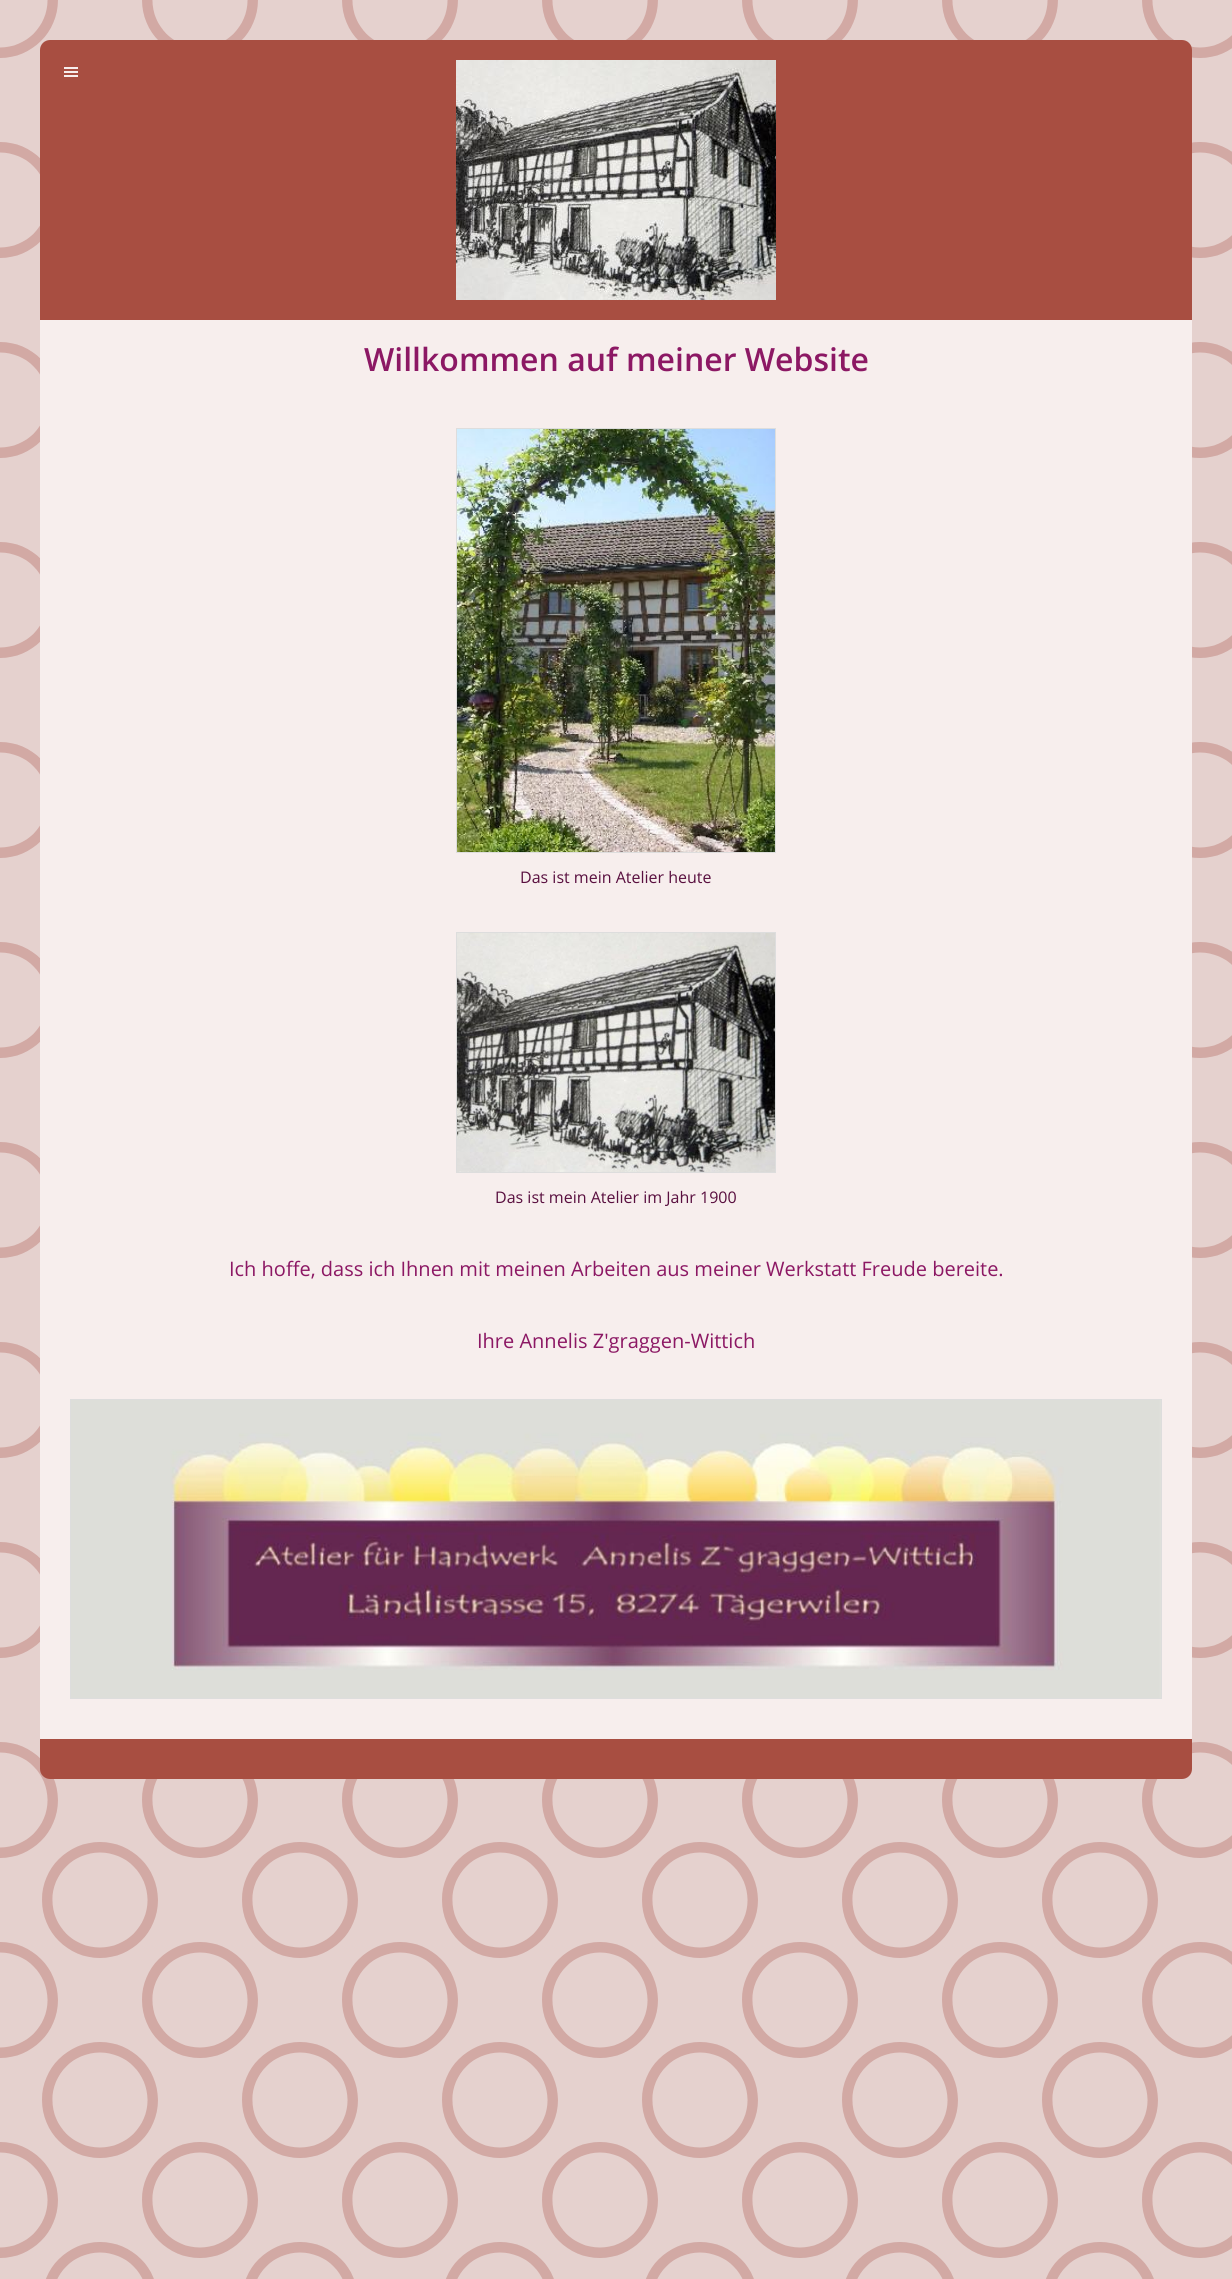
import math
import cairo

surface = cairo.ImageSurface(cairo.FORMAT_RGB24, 1232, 2279)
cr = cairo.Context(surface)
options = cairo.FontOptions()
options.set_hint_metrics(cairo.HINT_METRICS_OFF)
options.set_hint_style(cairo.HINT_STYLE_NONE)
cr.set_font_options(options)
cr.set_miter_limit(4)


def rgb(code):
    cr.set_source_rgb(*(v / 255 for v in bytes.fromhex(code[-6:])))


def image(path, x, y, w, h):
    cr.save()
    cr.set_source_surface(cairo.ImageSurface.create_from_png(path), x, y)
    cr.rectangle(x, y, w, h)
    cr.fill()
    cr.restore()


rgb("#e5d1ce")
cr.paint()
image("img/1.png", 0, 0, 1232, 2279)
rgb("#a84e41")
cr.new_path()
cr.move_to(50, 40)
cr.line_to(1182, 40)
cr.curve_to(1187.5, 40, 1192, 44.5, 1192, 50)
cr.line_to(1192, 320)
cr.line_to(40, 320)
cr.line_to(40, 50)
cr.curve_to(40, 44.5, 44.5, 40, 50, 40)
cr.close_path()
cr.fill()
image("img/2.png", 64, 67, 14, 10)
image("img/3.png", 456, 60, 320, 240)
rgb("#f7eeed")
cr.rectangle(40, 320, 1152, 1419)
cr.fill()
cr.rectangle(456.5, 428.5, 319, 424)
rgb("#dddddd")
cr.set_line_width(1)
cr.stroke()
image("img/4.png", 457, 429, 318, 423)
cr.rectangle(456.5, 932.5, 319, 240)
cr.stroke()
image("img/5.png", 457, 933, 318, 239)
cr.rectangle(70.5, 1399.5, 1091, 299)
cr.stroke()
image("img/6.png", 71, 1400, 1090, 298)
rgb("#a84e41")
cr.new_path()
cr.move_to(40, 1739)
cr.line_to(1192, 1739)
cr.line_to(1192, 1769)
cr.curve_to(1192, 1774.5, 1187.5, 1779, 1182, 1779)
cr.line_to(50, 1779)
cr.curve_to(44.5, 1779, 40, 1774.5, 40, 1769)
cr.close_path()
cr.fill()
cr.select_font_face("Open Sans SemiBold")
cr.set_font_size(32)
rgb("#8c1864")
cr.move_to(364, 371)
cr.show_text("Willkommen auf meiner Website")
cr.select_font_face("Open Sans")
cr.set_font_size(16)
rgb("#590f3f")
cr.move_to(520, 883)
cr.show_text("Das ist mein Atelier heute")
cr.move_to(495, 1203)
cr.show_text("Das ist mein Atelier im Jahr 1900")
cr.set_font_size(20)
rgb("#8c1864")
cr.move_to(229, 1276)
cr.show_text("Ich hoffe, dass ich Ihnen mit meinen Arbeiten aus meiner Werkstatt Freude bereite.")
cr.move_to(477, 1348)
cr.show_text("Ihre Annelis Z'graggen-Wittich")
surface.write_to_png("page.png")
